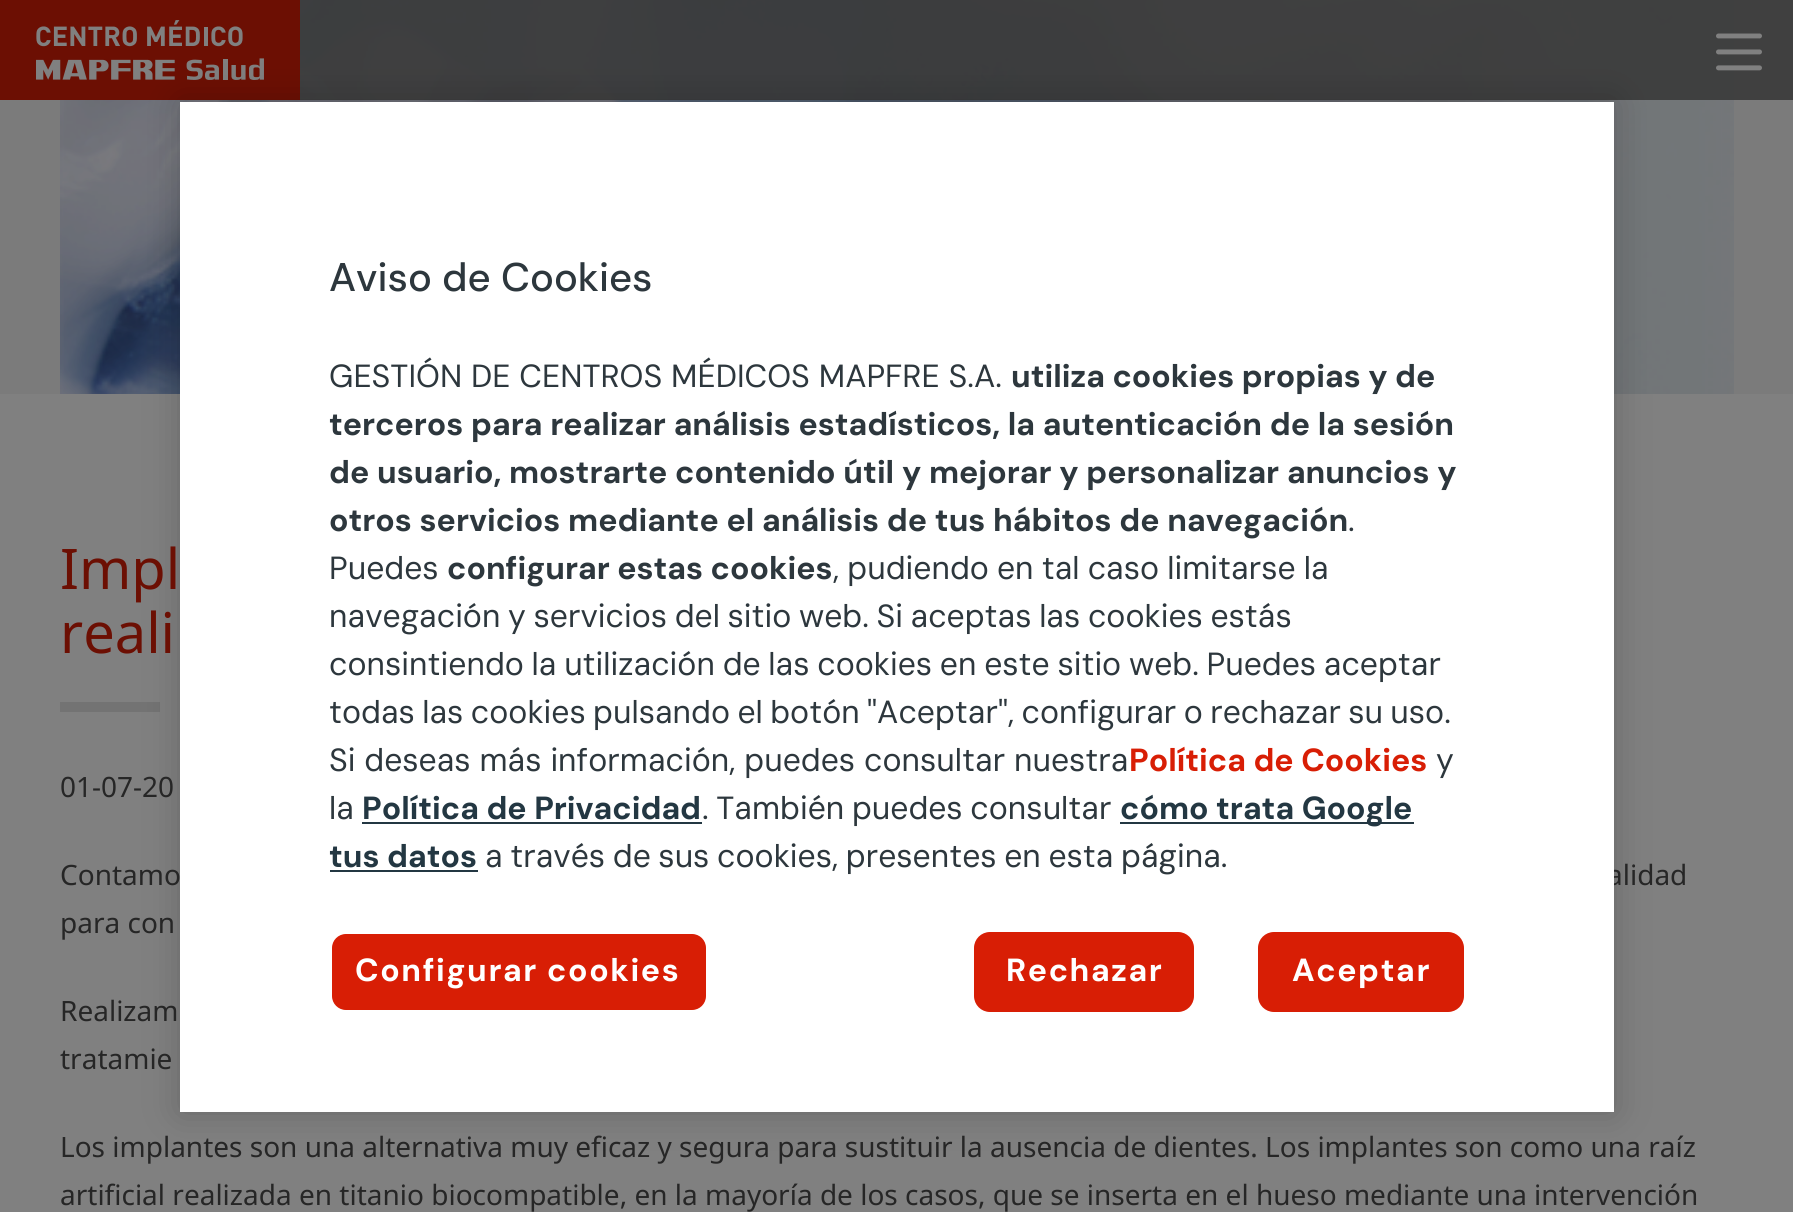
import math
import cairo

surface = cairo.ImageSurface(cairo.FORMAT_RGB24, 1793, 1212)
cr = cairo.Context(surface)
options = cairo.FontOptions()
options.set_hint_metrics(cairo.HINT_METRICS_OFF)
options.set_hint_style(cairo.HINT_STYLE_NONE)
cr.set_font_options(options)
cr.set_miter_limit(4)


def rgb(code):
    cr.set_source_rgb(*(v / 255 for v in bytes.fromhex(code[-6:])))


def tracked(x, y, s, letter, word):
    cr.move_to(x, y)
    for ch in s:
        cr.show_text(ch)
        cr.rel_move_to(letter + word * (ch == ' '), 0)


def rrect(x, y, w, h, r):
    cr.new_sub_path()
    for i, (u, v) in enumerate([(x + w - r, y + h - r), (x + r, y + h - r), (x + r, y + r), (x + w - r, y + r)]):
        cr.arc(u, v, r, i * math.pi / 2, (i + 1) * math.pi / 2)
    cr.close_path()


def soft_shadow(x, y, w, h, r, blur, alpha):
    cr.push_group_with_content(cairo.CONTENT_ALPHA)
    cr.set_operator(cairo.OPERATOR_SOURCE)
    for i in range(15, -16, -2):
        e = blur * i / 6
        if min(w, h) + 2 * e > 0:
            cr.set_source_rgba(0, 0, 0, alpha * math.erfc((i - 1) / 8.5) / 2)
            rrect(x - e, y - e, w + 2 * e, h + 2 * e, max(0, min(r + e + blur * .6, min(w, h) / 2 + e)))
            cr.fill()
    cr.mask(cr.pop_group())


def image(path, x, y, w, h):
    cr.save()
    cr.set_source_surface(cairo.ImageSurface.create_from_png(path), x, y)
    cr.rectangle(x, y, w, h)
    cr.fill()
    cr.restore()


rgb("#808080")
cr.paint()
rgb("#7b7b7b")
cr.rectangle(0, 0, 1793, 394)
cr.fill()
image("img/3.png", 60, 0, 1674, 394)
cr.set_source_rgba(0.227, 0.227, 0.227, 0.9)
cr.rectangle(300, 0, 1493, 100)
cr.fill()
rgb("#6c0f03")
cr.rectangle(0, 0, 300, 100)
cr.fill()
image("img/1.png", 36, 20, 228, 60)
rgb("#737373")
cr.rectangle(60, 702, 100, 10)
cr.fill()
rgb("#000000")
soft_shadow(180, 102, 1434, 1010, 0, 18, 0.2)
image("img/2.png", 1716, 33, 46, 38)
cr.select_font_face("Noto Sans")
cr.set_font_size(56)
rgb("#6c0f03")
cr.move_to(60, 589)
cr.show_text("Impl")
cr.move_to(60, 653)
cr.show_text("reali")
cr.set_font_size(28)
rgb("#262626")
for x, y, s in [
    (60, 797, "01-07-20"),
    (60, 885, "Contamo"),
    (1607, 885, "alidad"),
]:
    cr.move_to(x, y)
    cr.show_text(s)
rgb("#ffffff")
cr.rectangle(180, 102, 1434, 1010)
cr.fill()
rgb("#d81e05")
rrect(1259, 933, 204, 78, 15)
cr.fill_preserve()
cr.stroke()
cr.select_font_face("DM Sans", cairo.FONT_SLANT_NORMAL, cairo.FONT_WEIGHT_BOLD)
cr.set_font_size(32)
rgb("#ffffff")
tracked(1292, 981, "Aceptar", 1.6, 0)
rgb("#d81e05")
rrect(975, 933, 218, 78, 15)
cr.fill_preserve()
cr.stroke()
rgb("#ffffff")
tracked(1006, 981, "Rechazar", 1.6, 0)
rgb("#d81e05")
rrect(331, 933, 376, 78, 15)
cr.fill_preserve()
rgb("#ffffff")
cr.stroke()
tracked(355, 981, "Configurar cookies", 1.6, 0)
cr.select_font_face("DM Sans")
rgb("#2d373d")
tracked(485, 867, "a través de sus cookies, presentes en esta página.", 0, -1)
cr.select_font_face("DM Sans", cairo.FONT_SLANT_NORMAL, cairo.FONT_WEIGHT_BOLD)
rgb("#233742")
cr.move_to(329, 867)
cr.show_text("tus datos")
cr.rectangle(330, 870, 148, 2)
cr.fill()
cr.rectangle(1120, 822, 294, 2)
cr.fill()
cr.move_to(1120, 819)
cr.show_text("cómo trata Google")
cr.select_font_face("DM Sans")
rgb("#2d373d")
tracked(702, 819, ". También puedes consultar", 0, -1)
cr.select_font_face("DM Sans", cairo.FONT_SLANT_NORMAL, cairo.FONT_WEIGHT_BOLD)
rgb("#233742")
cr.move_to(362, 819)
cr.show_text("Política de Privacidad")
cr.rectangle(362, 822, 340, 2)
cr.fill()
cr.select_font_face("DM Sans")
rgb("#2d373d")
cr.move_to(329, 819)
cr.show_text("la")
cr.move_to(1436, 771)
cr.show_text("y")
cr.select_font_face("DM Sans", cairo.FONT_SLANT_NORMAL, cairo.FONT_WEIGHT_BOLD)
rgb("#d81e05")
cr.move_to(1129, 771)
cr.show_text("Política de Cookies")
cr.select_font_face("DM Sans")
rgb("#2d373d")
tracked(329, 771, "Si deseas más información, puedes consultar nuestra", 0, 0.25)
tracked(329, 723, "todas las cookies pulsando el botón \"Aceptar\", configurar o rechazar su uso.", 0, -1.25)
tracked(329, 675, "consintiendo la utilización de las cookies en este sitio web. Puedes aceptar", 0, -0.9)
tracked(329, 627, "navegación y servicios del sitio web. Si aceptas las cookies estás", 0, -1)
tracked(833, 579, ", pudiendo en tal caso limitarse la", 0, -0.5)
cr.select_font_face("DM Sans", cairo.FONT_SLANT_NORMAL, cairo.FONT_WEIGHT_BOLD)
cr.move_to(447, 579)
cr.show_text("configurar estas cookies")
cr.select_font_face("DM Sans")
cr.move_to(329, 579)
cr.show_text("Puedes")
cr.move_to(1348, 531)
cr.show_text(".")
cr.select_font_face("DM Sans", cairo.FONT_SLANT_NORMAL, cairo.FONT_WEIGHT_BOLD)
for x, y, s in [
    (329, 531, "otros servicios mediante el análisis de tus hábitos de navegación"),
    (329, 483, "de usuario, mostrarte contenido útil y mejorar y personalizar anuncios y"),
    (329, 435, "terceros para realizar análisis estadísticos, la autenticación de la sesión"),
]:
    tracked(x, y, s, 0, 0.25)
cr.move_to(1011, 387)
cr.show_text("utiliza cookies propias y de")
cr.select_font_face("DM Sans")
tracked(329, 387, "GESTIÓN DE CENTROS MÉDICOS MAPFRE S.A.", 0, 0.25)
cr.select_font_face("DM Sans Medium")
cr.set_font_size(40)
cr.move_to(329, 291)
cr.show_text("Aviso de Cookies")
cr.select_font_face("Noto Sans")
cr.set_font_size(28)
rgb("#262626")
for x, y, s in [
    (60, 933, "para con"),
    (60, 1021, "Realizam"),
    (60, 1069, "tratamie"),
    (60, 1157, "Los implantes son una alternativa muy eficaz y segura para sustituir la ausencia de dientes. Los implantes son como una raíz"),
    (60, 1205, "artificial realizada en titanio biocompatible, en la mayoría de los casos, que se inserta en el hueso mediante una intervención"),
]:
    cr.move_to(x, y)
    cr.show_text(s)
surface.write_to_png("page.png")
